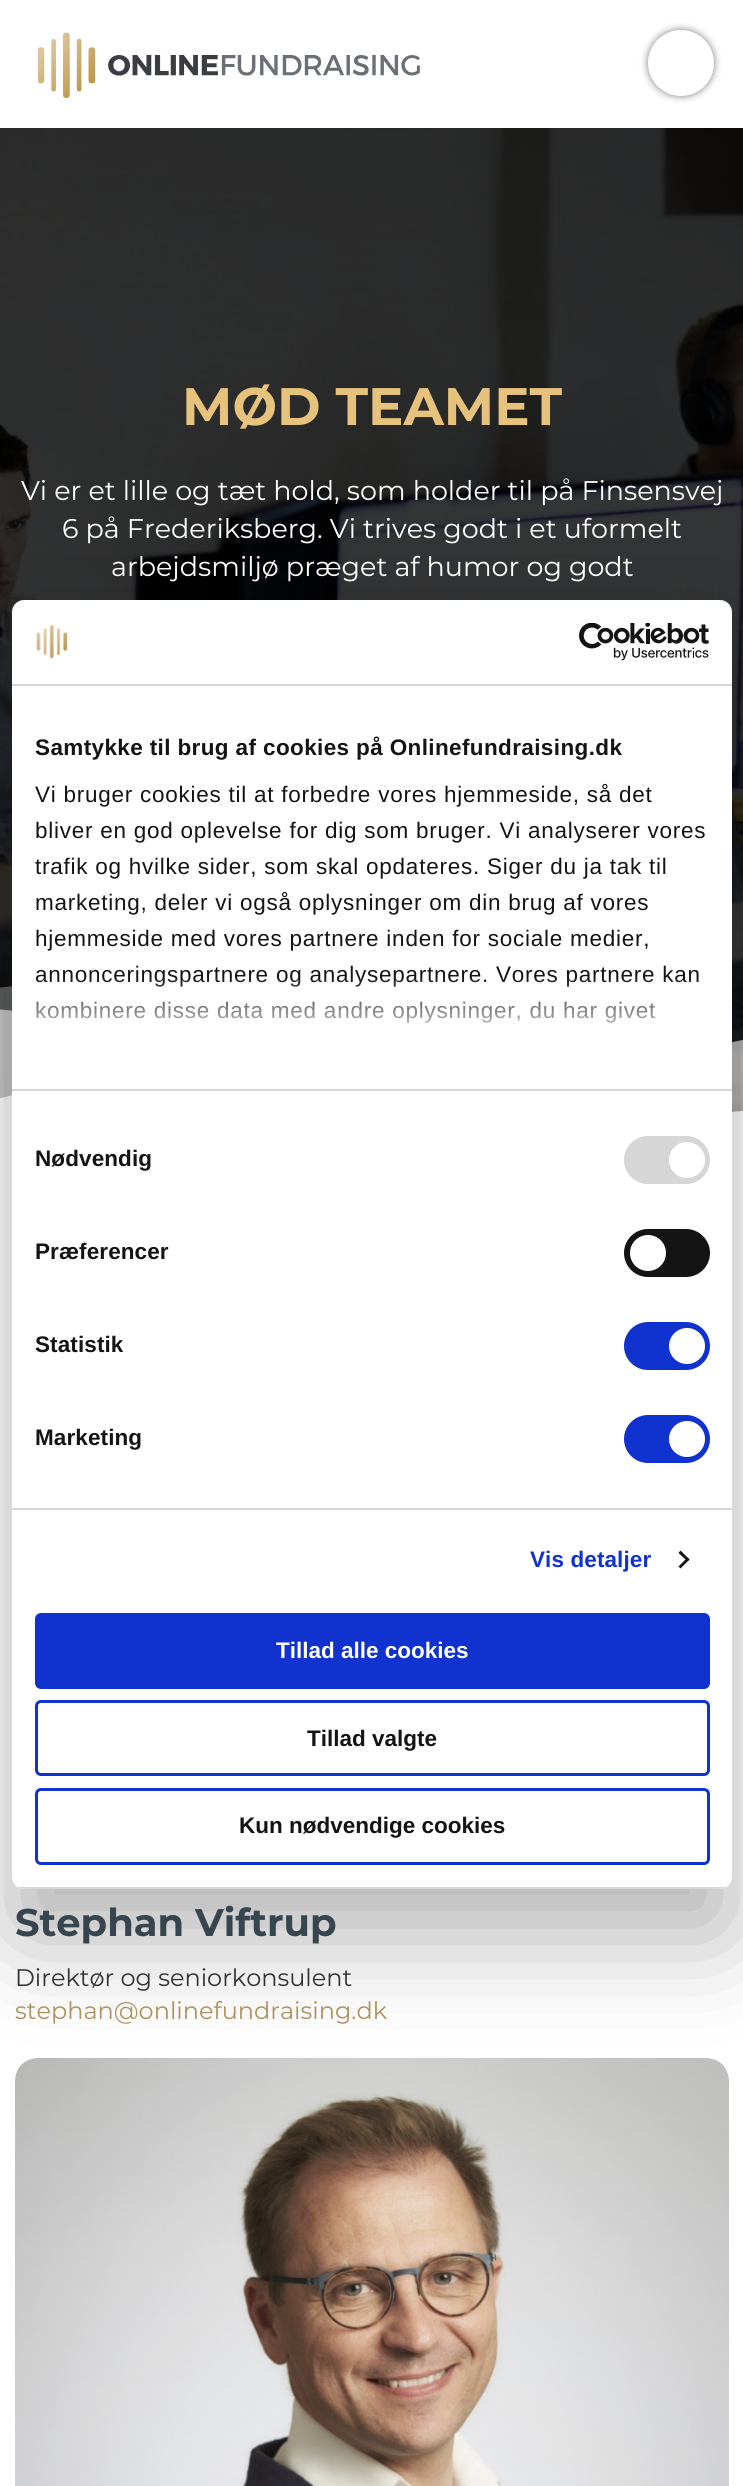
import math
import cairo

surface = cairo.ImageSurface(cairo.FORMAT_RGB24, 743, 2486)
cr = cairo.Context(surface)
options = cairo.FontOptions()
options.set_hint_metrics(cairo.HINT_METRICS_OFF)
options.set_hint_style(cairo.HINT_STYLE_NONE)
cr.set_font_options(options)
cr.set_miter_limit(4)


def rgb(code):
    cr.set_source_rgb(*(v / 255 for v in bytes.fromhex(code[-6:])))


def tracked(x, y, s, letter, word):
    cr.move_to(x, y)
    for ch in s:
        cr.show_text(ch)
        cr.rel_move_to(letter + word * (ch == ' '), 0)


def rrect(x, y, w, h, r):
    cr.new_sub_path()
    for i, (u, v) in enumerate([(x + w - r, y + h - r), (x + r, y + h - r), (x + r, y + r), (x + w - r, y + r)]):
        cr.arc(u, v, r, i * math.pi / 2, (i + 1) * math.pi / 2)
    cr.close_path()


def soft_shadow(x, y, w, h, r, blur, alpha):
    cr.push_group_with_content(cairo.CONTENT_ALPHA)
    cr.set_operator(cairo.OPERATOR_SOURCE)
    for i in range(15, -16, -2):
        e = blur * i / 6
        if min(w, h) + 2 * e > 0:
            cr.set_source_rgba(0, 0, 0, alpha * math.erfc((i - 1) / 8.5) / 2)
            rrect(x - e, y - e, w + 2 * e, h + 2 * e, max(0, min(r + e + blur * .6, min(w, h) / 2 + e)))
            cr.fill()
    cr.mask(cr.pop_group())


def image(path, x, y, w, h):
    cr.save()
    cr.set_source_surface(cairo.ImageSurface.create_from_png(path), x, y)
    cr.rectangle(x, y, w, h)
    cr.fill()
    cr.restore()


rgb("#ffffff")
cr.paint()
image("img/1.png", 37, 32, 383, 66)
rgb("#000000")
soft_shadow(648, 30, 66, 66, 33, 4, 0.5)
rgb("#ffffff")
cr.arc(681, 63, 33, 0, 2 * math.pi)
cr.fill()
image("img/2.png", 0, 128, 743, 984)
image("img/3.png", 0, 986, 743, 147)
image("img/4.png", 15, 2058, 714, 428)
rgb("#000000")
soft_shadow(12, 648, 720, 1289, 12, 51, 0.3)
rgb("#ffffff")
rrect(12, 600, 720, 1289, 12)
cr.fill()
rgb("#d6d6d6")
cr.rectangle(12, 684, 720, 2)
cr.fill()
image("img/5.png", 36, 625, 32, 34)
image("img/6.png", 579, 623, 130, 38)
cr.rectangle(12, 1089, 720, 2)
cr.fill()
cr.rectangle(12, 1508, 720, 2)
cr.fill()
rrect(624, 1136, 86, 48, 24)
cr.fill()
rgb("#ffffff")
cr.arc(687, 1160, 18, 0, 2 * math.pi)
cr.fill()
rgb("#141414")
rrect(624, 1229, 86, 48, 24)
cr.fill()
rgb("#ffffff")
cr.arc(648, 1253, 18, 0, 2 * math.pi)
cr.fill()
rgb("#1032cf")
rrect(624, 1322, 86, 48, 24)
cr.fill()
rgb("#ffffff")
cr.arc(687, 1346, 18, 0, 2 * math.pi)
cr.fill()
rgb("#1032cf")
rrect(624, 1415, 86, 48, 24)
cr.fill()
rgb("#ffffff")
cr.arc(687, 1439, 18, 0, 2 * math.pi)
cr.fill()
rgb("#141414")
cr.new_path()
cr.move_to(680.5, 1550.5)
cr.line_to(689.5, 1559.5)
cr.line_to(687.5, 1561.5)
cr.line_to(678.5, 1553)
cr.close_path()
cr.fill()
cr.new_path()
cr.move_to(687.5, 1557.5)
cr.line_to(689.5, 1559.5)
cr.line_to(680.5, 1568.5)
cr.line_to(678.5, 1566.5)
cr.close_path()
cr.fill()
cr.save()
rrect(12, 600, 720, 1289, 12)
cr.clip()
rgb("#d6d6d6")
cr.rectangle(12, 1887, 720, 2)
cr.fill()
cr.restore()
rgb("#1032cf")
rrect(36.5, 1614.5, 672, 73, 4.5)
cr.fill_preserve()
cr.set_line_width(3)
cr.stroke()
rrect(36.5, 1701.5, 672, 73, 4.5)
cr.stroke()
rrect(36.5, 1789.5, 672, 74, 4.5)
cr.stroke()
cr.select_font_face("Montserrat", cairo.FONT_SLANT_NORMAL, cairo.FONT_WEIGHT_BOLD)
cr.set_font_size(52.75)
rgb("#e6c27c")
cr.move_to(182, 425)
cr.show_text("MØD TEAMET")
cr.select_font_face("Montserrat")
cr.set_font_size(27)
rgb("#ffffff")
for x, y, s in [
    (21, 500, "Vi er et lille og tæt hold, som holder til på Finsensvej"),
    (62, 538, "6 på Frederiksberg. Vi trives godt i et uformelt"),
    (111, 576, "arbejdsmiljø præget af humor og godt"),
]:
    cr.move_to(x, y)
    cr.show_text(s)
cr.select_font_face("Montserrat", cairo.FONT_SLANT_NORMAL, cairo.FONT_WEIGHT_BOLD)
cr.set_font_size(38.5)
rgb("#36454e")
cr.move_to(15, 1936)
cr.show_text("Stephan Viftrup")
cr.select_font_face("Montserrat")
cr.set_font_size(24)
rgb("#333333")
cr.move_to(15, 1986)
cr.show_text("Direktør og seniorkonsulent")
rgb("#ae925f")
cr.move_to(15, 2019)
cr.show_text("stephan@onlinefundraising.dk")
cr.select_font_face("Liberation Sans", cairo.FONT_SLANT_NORMAL, cairo.FONT_WEIGHT_BOLD)
cr.set_font_size(22.5)
rgb("#141414")
tracked(35, 755, "Samtykke til brug af cookies på Onlinefundraising.dk", 0.38, 0)
cr.select_font_face("Liberation Sans")
for x, y, s in [
    (35, 802, "Vi bruger cookies til at forbedre vores hjemmeside, så det"),
    (35, 838, "bliver en god oplevelse for dig som bruger. Vi analyserer vores"),
    (35, 874, "trafik og hvilke sider, som skal opdateres. Siger du ja tak til"),
    (35, 910, "marketing, deler vi også oplysninger om din brug af vores"),
    (35, 946, "hjemmeside med vores partnere inden for sociale medier,"),
    (35, 982, "annonceringspartnere og analysepartnere. Vores partnere kan"),
    (35, 1018, "kombinere disse data med andre oplysninger, du har givet"),
]:
    tracked(x, y, s, 0.75, 0)
gradient = cairo.LinearGradient(362, 1089, 362, 976)
gradient.add_color_stop_rgba(0, 1, 1, 1, 1)
gradient.add_color_stop_rgba(0.5, 1, 1, 1, 0.8)
gradient.add_color_stop_rgba(1, 1, 1, 1, 0)
cr.set_source(gradient)
cr.rectangle(35, 978, 664, 45)
cr.fill()
cr.select_font_face("Liberation Sans", cairo.FONT_SLANT_NORMAL, cairo.FONT_WEIGHT_BOLD)
rgb("#141414")
for x, y, s in [
    (35, 1166, "Nødvendig"),
    (35, 1259, "Præferencer"),
    (35, 1352, "Statistik"),
    (35, 1445, "Marketing"),
]:
    tracked(x, y, s, 0.1, 0)
rgb("#1032cf")
tracked(530, 1567, "Vis detaljer", 0.1, 0)
rgb("#ffffff")
cr.move_to(276, 1658)
cr.show_text("Tillad alle cookies")
rgb("#141414")
cr.move_to(307, 1746)
cr.show_text("Tillad valgte")
cr.move_to(239, 1833)
cr.show_text("Kun nødvendige cookies")
surface.write_to_png("page.png")
